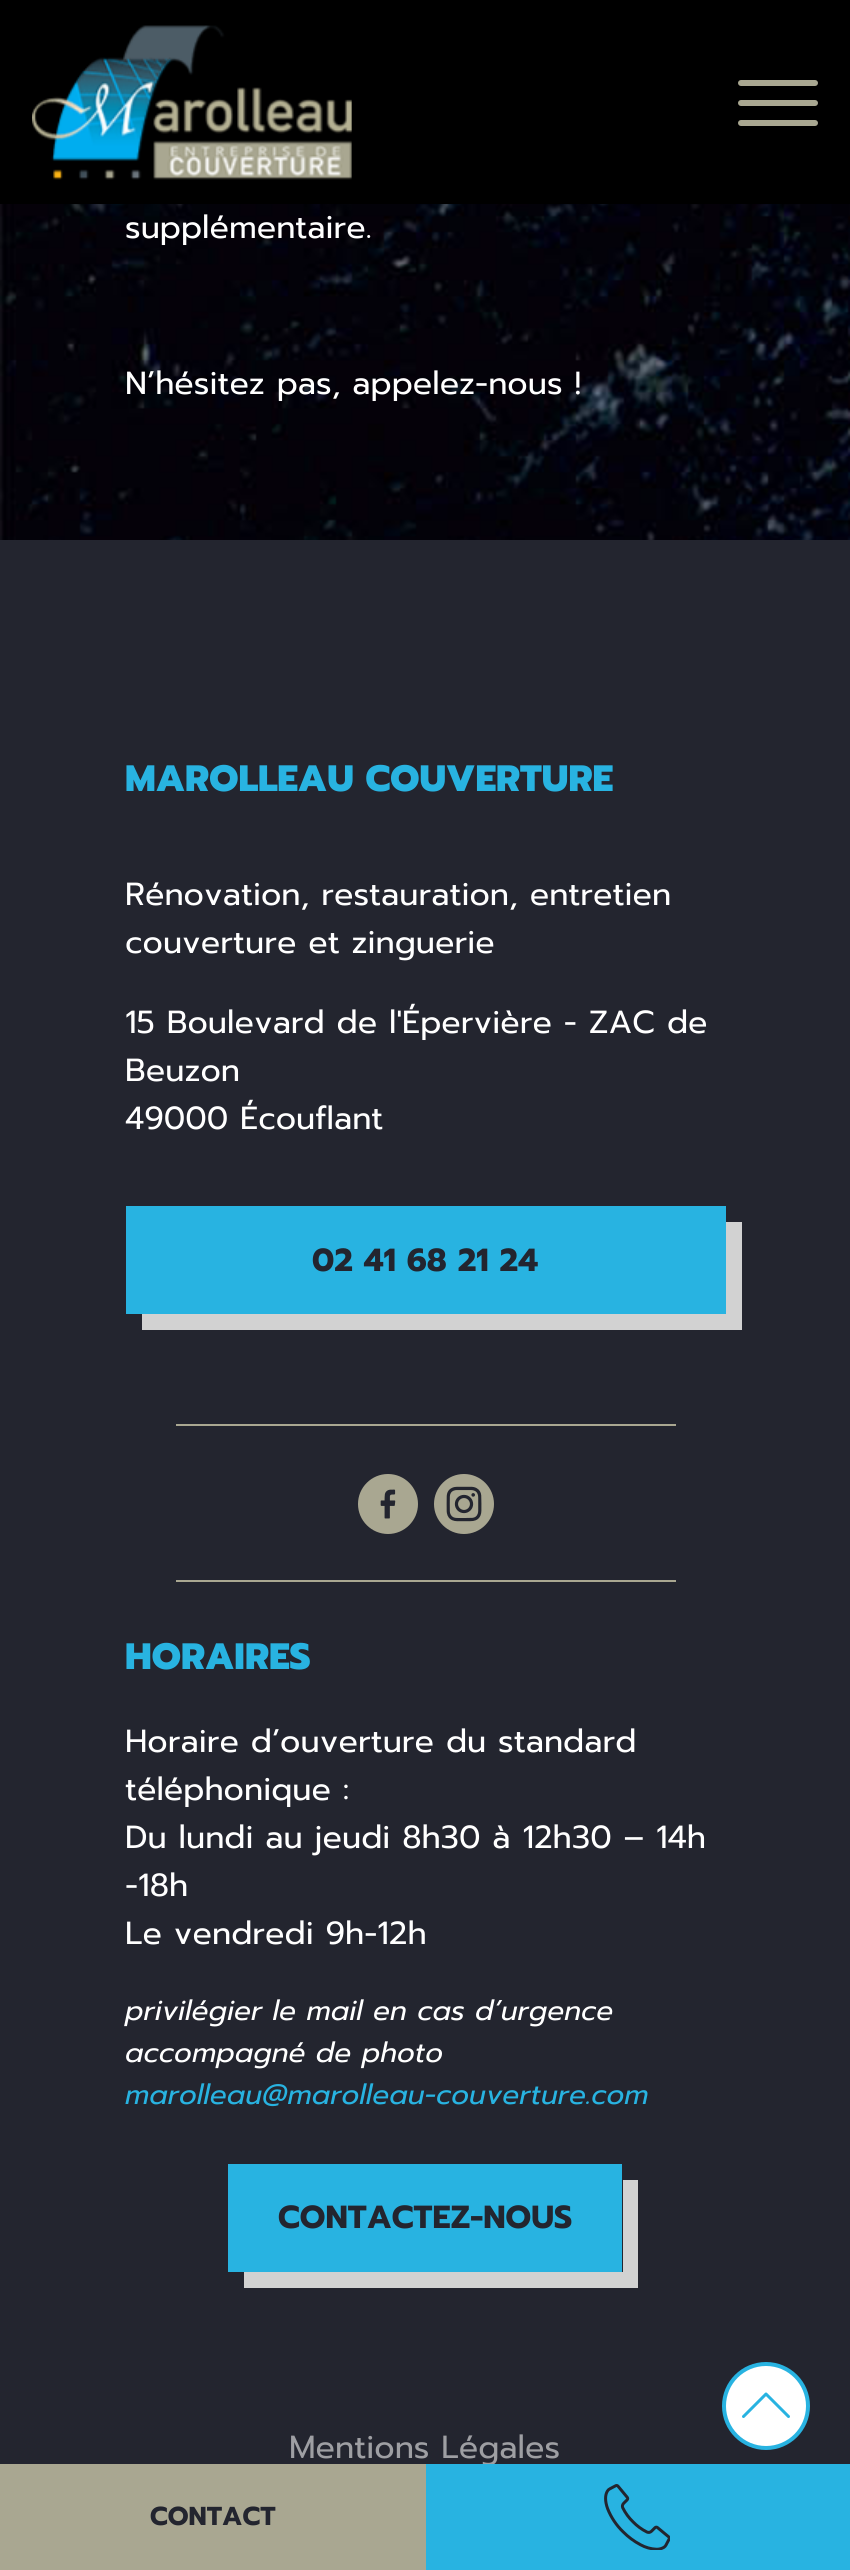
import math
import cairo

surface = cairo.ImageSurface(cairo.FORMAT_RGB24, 850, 2570)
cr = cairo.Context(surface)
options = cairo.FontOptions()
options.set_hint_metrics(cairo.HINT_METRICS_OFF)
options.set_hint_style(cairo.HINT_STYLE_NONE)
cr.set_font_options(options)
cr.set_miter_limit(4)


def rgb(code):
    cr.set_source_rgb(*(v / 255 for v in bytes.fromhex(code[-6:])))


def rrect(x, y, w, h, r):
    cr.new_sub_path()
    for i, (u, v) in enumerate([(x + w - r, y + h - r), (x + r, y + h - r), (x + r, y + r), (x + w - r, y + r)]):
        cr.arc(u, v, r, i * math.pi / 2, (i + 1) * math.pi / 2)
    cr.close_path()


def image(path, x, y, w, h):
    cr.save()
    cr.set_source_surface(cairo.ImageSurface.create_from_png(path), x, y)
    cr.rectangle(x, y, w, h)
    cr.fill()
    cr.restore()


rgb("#23252f")
cr.paint()
rgb("#000000")
cr.rectangle(0, 0, 850, 204)
cr.fill()
image("img/1.png", 32, 25, 320, 155)
rgb("#a9a791")
rrect(738, 100, 80, 6, 3)
cr.fill()
rrect(738, 80, 80, 6, 3)
cr.fill()
rrect(738, 120, 80, 6, 3)
cr.fill()
image("img/2.png", 0, 204, 850, 336)
rgb("#d2d2d2")
cr.new_path()
cr.move_to(142, 1314)
cr.line_to(142, 1330)
cr.line_to(742, 1330)
cr.line_to(742, 1222)
cr.line_to(726, 1222)
cr.line_to(726, 1314)
cr.close_path()
cr.fill()
rgb("#28b3e1")
cr.rectangle(126, 1206, 600, 108)
cr.fill()
rgb("#a9a791")
cr.rectangle(176, 1424, 500, 2)
cr.fill()
image("img/3.png", 358, 1474, 60, 60)
image("img/4.png", 434, 1474, 60, 60)
cr.rectangle(176, 1580, 500, 2)
cr.fill()
rgb("#d2d2d2")
cr.new_path()
cr.move_to(244, 2272)
cr.line_to(244, 2288)
cr.line_to(638, 2288)
cr.line_to(638, 2180)
cr.line_to(623, 2180)
cr.line_to(623, 2272)
cr.close_path()
cr.fill()
rgb("#28b3e1")
cr.rectangle(228, 2164, 394, 108)
cr.fill()
rgb("#ffffff")
cr.arc(766, 2406, 42, 0, 2 * math.pi)
cr.fill_preserve()
rgb("#28b3e1")
cr.set_line_width(4)
cr.stroke()
cr.new_path()
cr.move_to(788.5, 2416.5)
cr.line_to(766, 2394)
cr.line_to(743.5, 2416.5)
cr.set_line_width(3)
cr.set_line_cap(cairo.LINE_CAP_ROUND)
cr.set_line_join(cairo.LINE_JOIN_ROUND)
cr.stroke()
cr.select_font_face("Prompt")
cr.set_font_size(32)
rgb("#ffffff")
cr.move_to(125, 238)
cr.show_text("supplémentaire.")
cr.move_to(125, 394)
cr.show_text("N’hésitez pas, appelez-nous !")
cr.select_font_face("Prompt ExtraBold")
cr.set_font_size(36.75)
rgb("#28b3e1")
cr.move_to(125, 791)
cr.show_text("MAROLLEAU COUVERTURE")
cr.select_font_face("Prompt")
cr.set_font_size(32)
rgb("#ffffff")
for x, y, s in [
    (125, 905, "Rénovation, restauration, entretien"),
    (125, 953, "couverture et zinguerie"),
    (125, 1033, "15 Boulevard de l'Épervière - ZAC de"),
    (125, 1081, "Beuzon"),
    (125, 1129, "49000 Écouflant"),
]:
    cr.move_to(x, y)
    cr.show_text(s)
cr.select_font_face("Prompt", cairo.FONT_SLANT_NORMAL, cairo.FONT_WEIGHT_BOLD)
rgb("#23252f")
cr.move_to(312, 1271)
cr.show_text("02 41 68 21 24")
cr.select_font_face("Prompt ExtraBold")
cr.set_font_size(36.75)
rgb("#28b3e1")
cr.move_to(125, 1669)
cr.show_text("HORAIRES")
cr.select_font_face("Prompt")
cr.set_font_size(32)
rgb("#ffffff")
for x, y, s in [
    (125, 1752, "Horaire d’ouverture du standard"),
    (125, 1800, "téléphonique :"),
    (125, 1848, "Du lundi au jeudi 8h30 à 12h30 – 14h"),
    (125, 1896, "-18h"),
    (125, 1944, "Le vendredi 9h-12h"),
]:
    cr.move_to(x, y)
    cr.show_text(s)
cr.select_font_face("Prompt", cairo.FONT_SLANT_ITALIC)
cr.set_font_size(28)
cr.move_to(125, 2020)
cr.show_text("privilégier le mail en cas d’urgence")
cr.move_to(125, 2062)
cr.show_text("accompagné de photo")
rgb("#28b3e1")
cr.move_to(125, 2104)
cr.show_text("marolleau@marolleau-couverture.com")
cr.select_font_face("Prompt", cairo.FONT_SLANT_NORMAL, cairo.FONT_WEIGHT_BOLD)
cr.set_font_size(32)
rgb("#23252f")
cr.move_to(278, 2228)
cr.show_text("CONTACTEZ-NOUS")
cr.select_font_face("Prompt")
rgb("#9e9fa3")
cr.move_to(289, 2458)
cr.show_text("Mentions Légales")
rgb("#a9a791")
cr.rectangle(0, 2464, 426, 106)
cr.fill()
cr.select_font_face("Prompt", cairo.FONT_SLANT_NORMAL, cairo.FONT_WEIGHT_BOLD)
cr.set_font_size(26)
rgb("#23252f")
cr.move_to(150, 2525)
cr.show_text("CONTACT")
rgb("#28b3e1")
cr.rectangle(426, 2464, 424, 106)
cr.fill()
image("img/5.png", 604, 2484, 66, 66)
surface.write_to_png("page.png")
